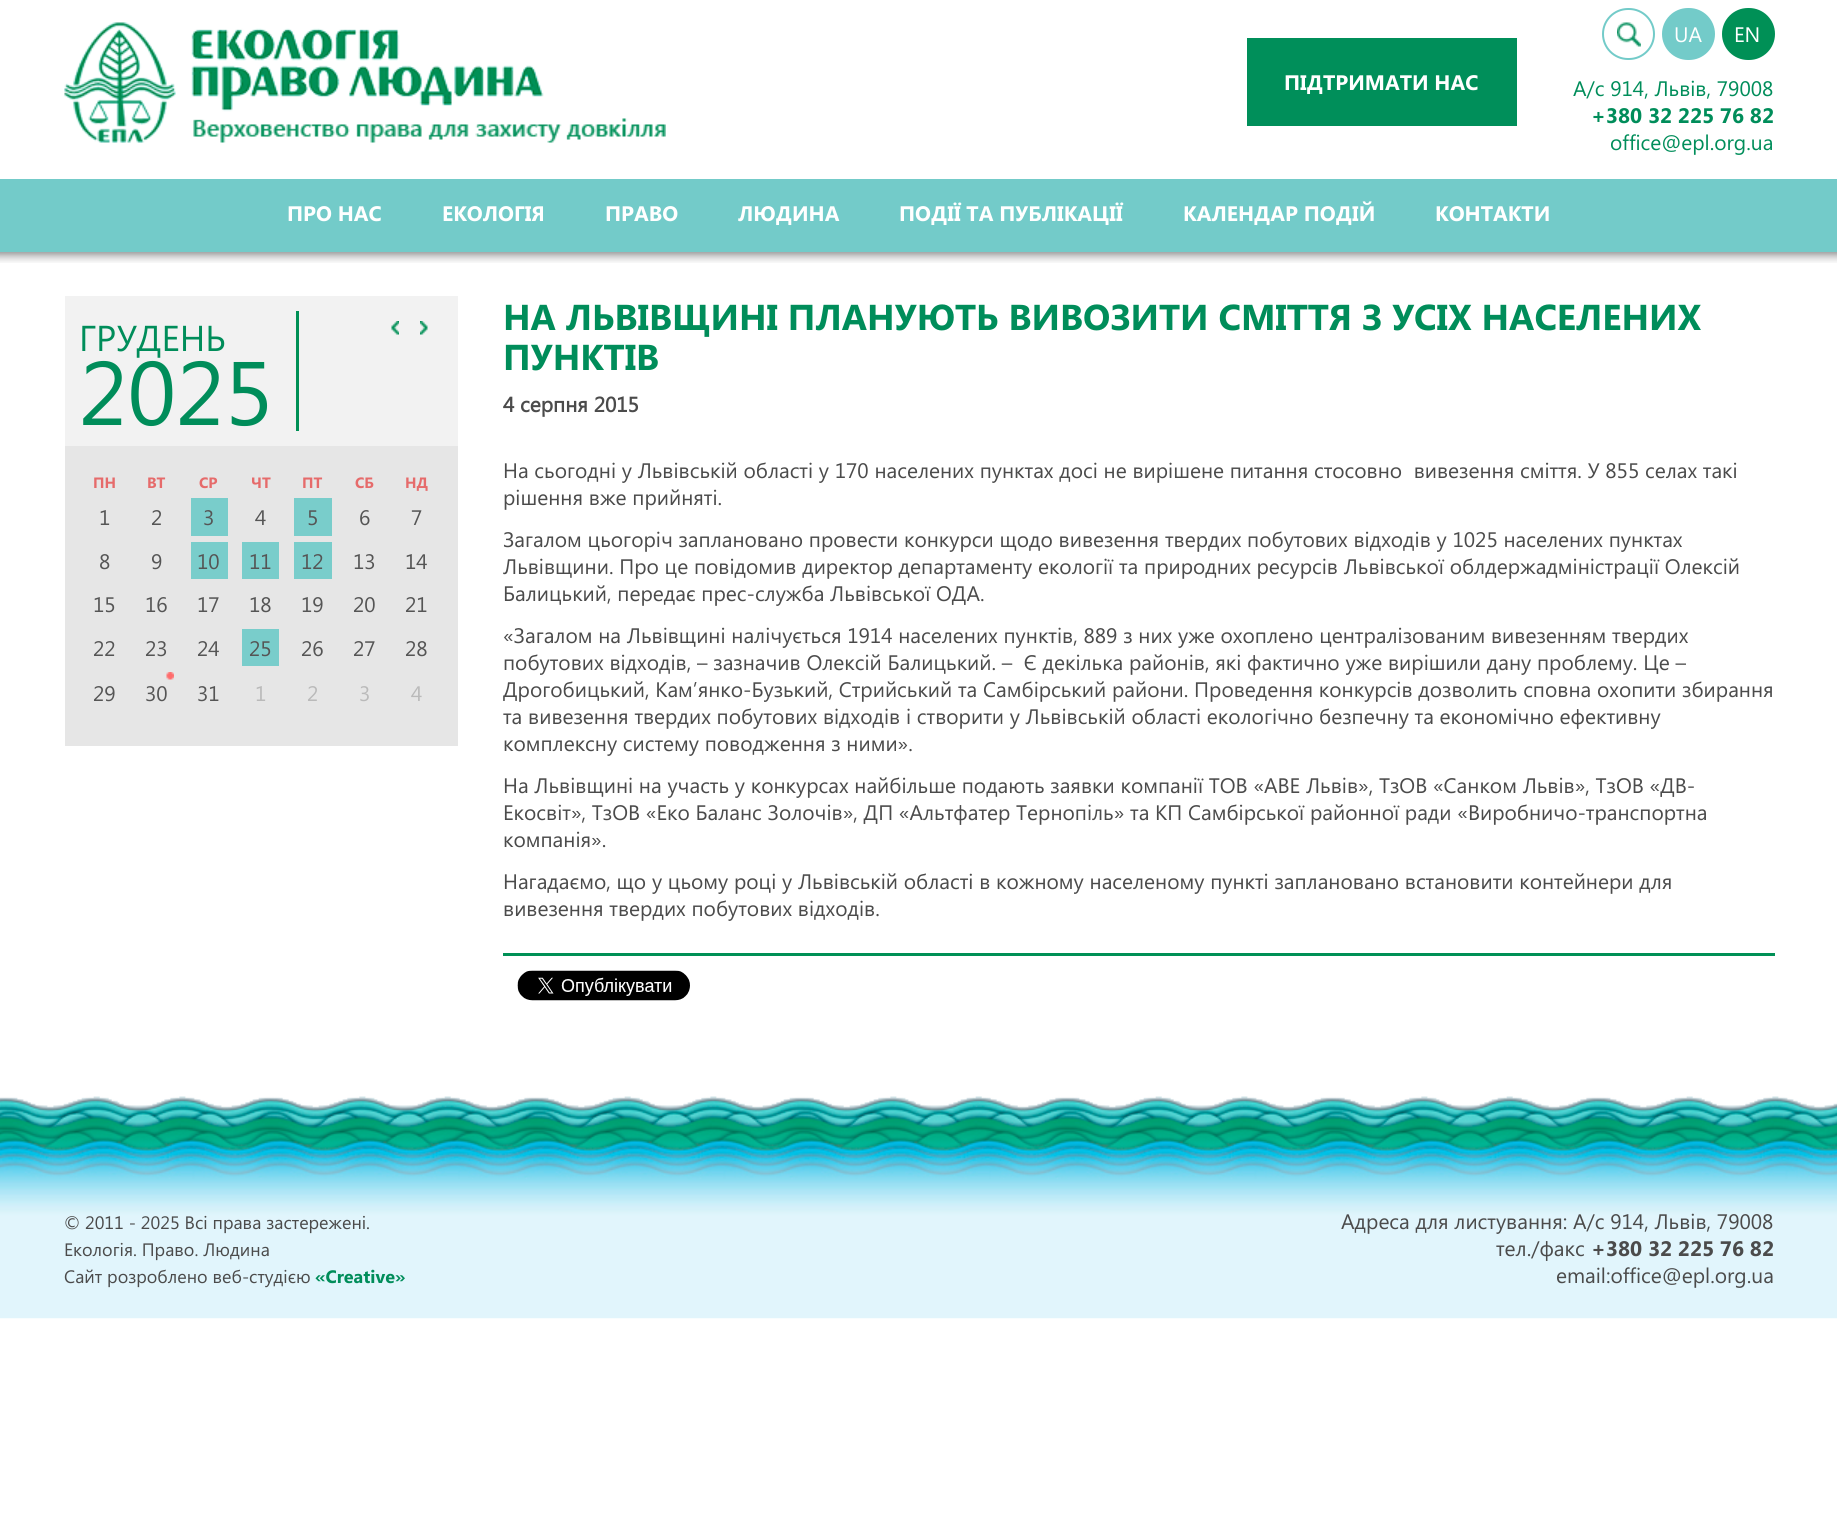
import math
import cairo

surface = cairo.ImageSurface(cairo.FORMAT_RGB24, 1837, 1537)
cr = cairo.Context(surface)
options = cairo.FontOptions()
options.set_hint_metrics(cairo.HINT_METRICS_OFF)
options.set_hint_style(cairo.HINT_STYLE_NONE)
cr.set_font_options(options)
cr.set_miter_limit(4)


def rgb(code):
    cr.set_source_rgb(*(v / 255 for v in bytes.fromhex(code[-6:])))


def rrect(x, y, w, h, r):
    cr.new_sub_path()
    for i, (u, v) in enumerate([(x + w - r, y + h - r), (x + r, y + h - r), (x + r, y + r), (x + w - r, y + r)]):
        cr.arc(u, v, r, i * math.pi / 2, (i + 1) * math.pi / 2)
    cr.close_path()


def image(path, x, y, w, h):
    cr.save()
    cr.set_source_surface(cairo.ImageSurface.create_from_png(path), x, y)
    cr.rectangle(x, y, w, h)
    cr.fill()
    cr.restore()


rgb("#ffffff")
cr.paint()
image("img/1.png", 64, 22, 602, 121)
rgb("#008f5a")
cr.rectangle(1247, 38, 270, 88)
cr.fill()
image("img/2.png", 1617, 22, 24, 25)
rrect(1603, 9, 51, 50, 25)
rgb("#73cbc9")
cr.stroke()
rrect(1662, 8, 53, 52, 26)
cr.fill()
rgb("#009056")
rrect(1722, 8, 53, 52, 26)
cr.fill()
image("img/3.png", 0, 252, 1837, 11)
for x, y, w, h, color in [
    (0, 179, 1837, 73, "#73cbc9"),
    (65, 296, 393, 150, "#f2f2f2"),
    (296, 311, 3, 120, "#009056"),
]:
    rgb(color)
    cr.rectangle(x, y, w, h)
    cr.fill()
image("img/4.png", 391, 321, 8, 14)
image("img/5.png", 420, 321, 8, 14)
for x, y, w, h, color in [
    (65, 446, 393, 300, "#e6e6e6"),
    (191, 498, 37, 38, "#79cdcb"),
    (294, 498, 38, 38, "#79cdcb"),
    (191, 542, 37, 37, "#79cdcb"),
    (242, 542, 37, 37, "#79cdcb"),
    (294, 542, 38, 37, "#79cdcb"),
    (242, 629, 37, 37, "#79cdcb"),
]:
    rgb(color)
    cr.rectangle(x, y, w, h)
    cr.fill()
image("img/6.png", 166, 672, 8, 8)
rgb("#009056")
cr.rectangle(503, 953, 1272, 3)
cr.fill()
image("img/7.png", 517, 970, 173, 31)
image("img/8.png", 0, 1096, 1837, 223)
cr.select_font_face("Segoe UI", cairo.FONT_SLANT_NORMAL, cairo.FONT_WEIGHT_BOLD)
cr.set_font_size(21)
rgb("#ffffff")
cr.move_to(1284, 90)
cr.show_text("ПІДТРИМАТИ НАС")
cr.select_font_face("Segoe UI")
cr.move_to(1674, 42)
cr.show_text("UA")
cr.move_to(1734, 42)
cr.show_text("EN")
rgb("#008d5a")
cr.move_to(1573, 96)
cr.show_text("А/c 914, Львів, 79008")
cr.select_font_face("Segoe UI", cairo.FONT_SLANT_NORMAL, cairo.FONT_WEIGHT_BOLD)
cr.move_to(1591, 123)
cr.show_text("+380 32 225 76 82")
cr.select_font_face("Segoe UI")
cr.move_to(1610, 150)
cr.show_text("office@epl.org.ua")
cr.select_font_face("Segoe UI", cairo.FONT_SLANT_NORMAL, cairo.FONT_WEIGHT_BOLD)
rgb("#ffffff")
for x, y, s in [
    (287, 221, "ПРО НАС"),
    (442, 221, "ЕКОЛОГІЯ"),
    (605, 221, "ПРАВО"),
    (738, 221, "ЛЮДИНА"),
    (899, 221, "ПОДІЇ ТА ПУБЛІКАЦІЇ"),
    (1183, 221, "КАЛЕНДАР ПОДІЙ"),
    (1435, 221, "КОНТАКТИ"),
]:
    cr.move_to(x, y)
    cr.show_text(s)
cr.select_font_face("Segoe UI")
cr.set_font_size(36)
rgb("#008d5a")
cr.move_to(79, 351)
cr.show_text("ГРУДЕНЬ")
cr.set_font_size(90)
cr.move_to(79, 425)
cr.show_text("2025")
cr.select_font_face("Segoe UI", cairo.FONT_SLANT_NORMAL, cairo.FONT_WEIGHT_BOLD)
cr.set_font_size(15)
rgb("#e66b6b")
for x, y, s in [
    (93, 488, "ПН"),
    (147, 488, "ВТ"),
    (199, 488, "СР"),
    (251, 488, "ЧТ"),
    (302, 488, "ПТ"),
    (355, 488, "СБ"),
    (405, 488, "НД"),
]:
    cr.move_to(x, y)
    cr.show_text(s)
cr.select_font_face("Segoe UI")
cr.set_font_size(21)
rgb("#555555")
for x, y, s in [
    (99, 525, "1"),
    (151, 525, "2"),
    (203, 525, "3"),
    (255, 525, "4"),
    (307, 525, "5"),
    (359, 525, "6"),
    (411, 525, "7"),
    (99, 569, "8"),
    (151, 569, "9"),
    (197, 569, "10"),
    (249, 569, "11"),
    (301, 569, "12"),
    (353, 569, "13"),
    (405, 569, "14"),
    (93, 612, "15"),
    (145, 612, "16"),
    (197, 612, "17"),
    (249, 612, "18"),
    (301, 612, "19"),
    (353, 612, "20"),
    (405, 612, "21"),
    (93, 656, "22"),
    (145, 656, "23"),
    (197, 656, "24"),
    (249, 656, "25"),
    (301, 656, "26"),
    (353, 656, "27"),
    (405, 656, "28"),
    (93, 701, "29"),
    (145, 701, "30"),
    (197, 701, "31"),
]:
    cr.move_to(x, y)
    cr.show_text(s)
rgb("#bababa")
for x, y, s in [
    (255, 701, "1"),
    (307, 701, "2"),
    (359, 701, "3"),
    (411, 701, "4"),
]:
    cr.move_to(x, y)
    cr.show_text(s)
cr.select_font_face("Segoe UI", cairo.FONT_SLANT_NORMAL, cairo.FONT_WEIGHT_BOLD)
cr.set_font_size(36)
rgb("#008d5a")
cr.move_to(503, 330)
cr.show_text("НА ЛЬВІВЩИНІ ПЛАНУЮТЬ ВИВОЗИТИ СМІТТЯ З УСІХ НАСЕЛЕНИХ")
cr.move_to(503, 370)
cr.show_text("ПУНКТІВ")
cr.select_font_face("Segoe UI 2", cairo.FONT_SLANT_NORMAL, cairo.FONT_WEIGHT_BOLD)
cr.set_font_size(21)
rgb("#4b4b4b")
cr.move_to(503, 412)
cr.show_text("4 серпня 2015")
cr.select_font_face("Segoe UI")
for x, y, s in [
    (503, 478, "На сьогодні у Львівській області у 170 населених пунктах досі не вирішене питання стосовно  вивезення сміття. У 855 селах такі"),
    (503, 505, "рішення вже прийняті."),
    (503, 547, "Загалом цьогоріч заплановано провести конкурси щодо вивезення твердих побутових відходів у 1025 населених пунктах"),
    (503, 574, "Львівщини. Про це повідомив директор департаменту екології та природних ресурсів Львівської облдержадміністрації Олексій"),
    (503, 601, "Балицький, передає прес-служба Львівської ОДА."),
    (503, 643, "«Загалом на Львівщині налічується 1914 населених пунктів, 889 з них уже охоплено централізованим вивезенням твердих"),
    (503, 670, "побутових відходів, – зазначив Олексій Балицький. –  Є декілька районів, які фактично уже вирішили дану проблему. Це –"),
    (503, 697, "Дрогобицький, Кам’янко-Бузький, Стрийський та Самбірський райони. Проведення конкурсів дозволить сповна охопити збирання"),
    (503, 724, "та вивезення твердих побутових відходів і створити у Львівській області екологічно безпечну та економічно ефективну"),
    (503, 751, "комплексну систему поводження з ними»."),
    (503, 793, "На Львівщині на участь у конкурсах найбільше подають заявки компанії ТОВ «АВЕ Львів», ТзОВ «Санком Львів», ТзОВ «ДВ-"),
    (503, 820, "Екосвіт», ТзОВ «Еко Баланс Золочів», ДП «Альтфатер Тернопіль» та КП Самбірської районної ради «Виробничо-транспортна"),
    (503, 847, "компанія»."),
    (503, 889, "Нагадаємо, що у цьому році у Львівській області в кожному населеному пункті заплановано встановити контейнери для"),
    (503, 916, "вивезення твердих побутових відходів."),
]:
    cr.move_to(x, y)
    cr.show_text(s)
cr.set_font_size(18)
for x, y, s in [
    (64, 1229, "© 2011 - 2025 Всі права застережені."),
    (64, 1256, "Екологія. Право. Людина"),
    (64, 1283, "Сайт розроблено веб-студією"),
]:
    cr.move_to(x, y)
    cr.show_text(s)
cr.select_font_face("Segoe UI", cairo.FONT_SLANT_NORMAL, cairo.FONT_WEIGHT_BOLD)
rgb("#008d5a")
cr.move_to(315, 1283)
cr.show_text("«Creative»")
cr.select_font_face("Segoe UI")
cr.set_font_size(21)
rgb("#4b4b4b")
cr.move_to(1341, 1229)
cr.show_text("Адреса для листування: А/c 914, Львів, 79008")
cr.move_to(1496, 1256)
cr.show_text("тел./факс")
cr.select_font_face("Segoe UI", cairo.FONT_SLANT_NORMAL, cairo.FONT_WEIGHT_BOLD)
cr.move_to(1591, 1256)
cr.show_text("+380 32 225 76 82")
cr.select_font_face("Segoe UI")
cr.move_to(1556, 1283)
cr.show_text("email:office@epl.org.ua")
surface.write_to_png("page.png")
